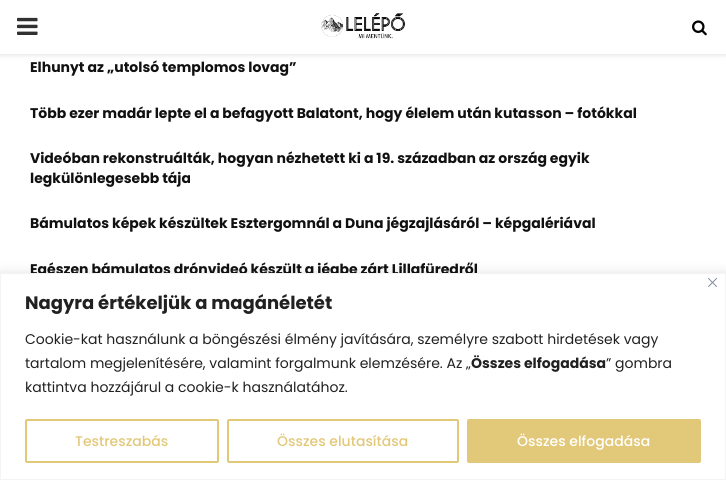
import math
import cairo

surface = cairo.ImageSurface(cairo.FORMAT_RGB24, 726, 480)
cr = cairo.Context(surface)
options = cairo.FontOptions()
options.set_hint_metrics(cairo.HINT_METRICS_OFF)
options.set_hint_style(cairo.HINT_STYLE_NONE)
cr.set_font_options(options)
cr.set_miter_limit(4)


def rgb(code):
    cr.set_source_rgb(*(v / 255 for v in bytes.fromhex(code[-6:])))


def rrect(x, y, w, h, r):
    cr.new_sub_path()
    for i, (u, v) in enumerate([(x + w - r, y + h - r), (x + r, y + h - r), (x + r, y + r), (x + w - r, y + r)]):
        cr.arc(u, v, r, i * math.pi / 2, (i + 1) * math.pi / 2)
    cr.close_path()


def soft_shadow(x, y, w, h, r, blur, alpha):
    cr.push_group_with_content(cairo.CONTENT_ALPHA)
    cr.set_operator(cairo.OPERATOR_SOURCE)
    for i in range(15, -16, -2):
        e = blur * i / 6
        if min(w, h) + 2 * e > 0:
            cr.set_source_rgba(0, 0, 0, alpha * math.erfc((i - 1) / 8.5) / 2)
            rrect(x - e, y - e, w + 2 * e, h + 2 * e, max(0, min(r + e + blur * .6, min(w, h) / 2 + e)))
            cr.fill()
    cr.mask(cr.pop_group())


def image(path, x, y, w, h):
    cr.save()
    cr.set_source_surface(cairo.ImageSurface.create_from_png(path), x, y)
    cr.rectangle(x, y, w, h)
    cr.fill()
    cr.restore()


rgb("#ffffff")
cr.paint()
rgb("#bebebe")
soft_shadow(0, 1, 726, 54, 0, 2.5, 0.46)
rgb("#ffffff")
cr.rectangle(0, 0, 726, 54)
cr.fill()
image("img/1.png", 17, 17, 21, 18)
image("img/2.png", 321, 13, 85, 26)
image("img/3.png", 692, 20, 15, 16)
rgb("#acabab")
soft_shadow(0, 272, 726, 207, 0, 5, 0.3)
cr.select_font_face("Poppins", cairo.FONT_SLANT_NORMAL, cairo.FONT_WEIGHT_BOLD)
cr.set_font_size(14)
rgb("#111111")
for x, y, s in [
    (30, 72, "Elhunyt az „utolsó templomos lovag”"),
    (30, 118, "Több ezer madár lepte el a befagyott Balatont, hogy élelem után kutasson – fotókkal"),
    (30, 163, "Videóban rekonstruálták, hogyan nézhetett ki a 19. században az ország egyik"),
    (30, 183, "legkülönlegesebb tája"),
    (30, 228, "Bámulatos képek készültek Esztergomnál a Duna jégzajlásáról – képgalériával"),
    (30, 274, "Egészen bámulatos drónvideó készült a jégbe zárt Lillafüredről"),
]:
    cr.move_to(x, y)
    cr.show_text(s)
rgb("#ffffff")
cr.rectangle(0.5, 273.5, 725, 206)
cr.fill_preserve()
rgb("#f4f4f4")
cr.set_line_width(1)
cr.stroke()
image("img/4.png", 708, 278, 9, 9)
cr.set_font_size(18)
rgb("#212121")
cr.move_to(25, 309)
cr.show_text("Nagyra értékeljük a magánéletét")
cr.select_font_face("Poppins")
cr.set_font_size(14)
cr.move_to(25, 344)
cr.show_text("Cookie-kat használunk a böngészési élmény javítására, személyre szabott hirdetések vagy")
cr.move_to(25, 368)
cr.show_text("tartalom megjelenítésére, valamint forgalmunk elemzésére. Az „")
cr.select_font_face("Poppins", cairo.FONT_SLANT_NORMAL, cairo.FONT_WEIGHT_BOLD)
cr.move_to(471, 368)
cr.show_text("Összes elfogadása")
cr.select_font_face("Poppins")
cr.move_to(606, 368)
cr.show_text("” gombra")
cr.move_to(25, 392)
cr.show_text("kattintva hozzájárul a cookie-k használatához.")
rrect(26, 420, 192, 42, 1)
rgb("#e2c879")
cr.set_line_width(2)
cr.stroke()
cr.select_font_face("Poppins Medium")
cr.move_to(75, 446)
cr.show_text("Testreszabás")
rrect(228, 420, 230, 42, 1)
cr.stroke()
cr.move_to(277, 446)
cr.show_text("Összes elutasítása")
rrect(468, 420, 232, 42, 1)
cr.fill_preserve()
cr.stroke()
rgb("#ffffff")
cr.move_to(517, 446)
cr.show_text("Összes elfogadása")
surface.write_to_png("page.png")
